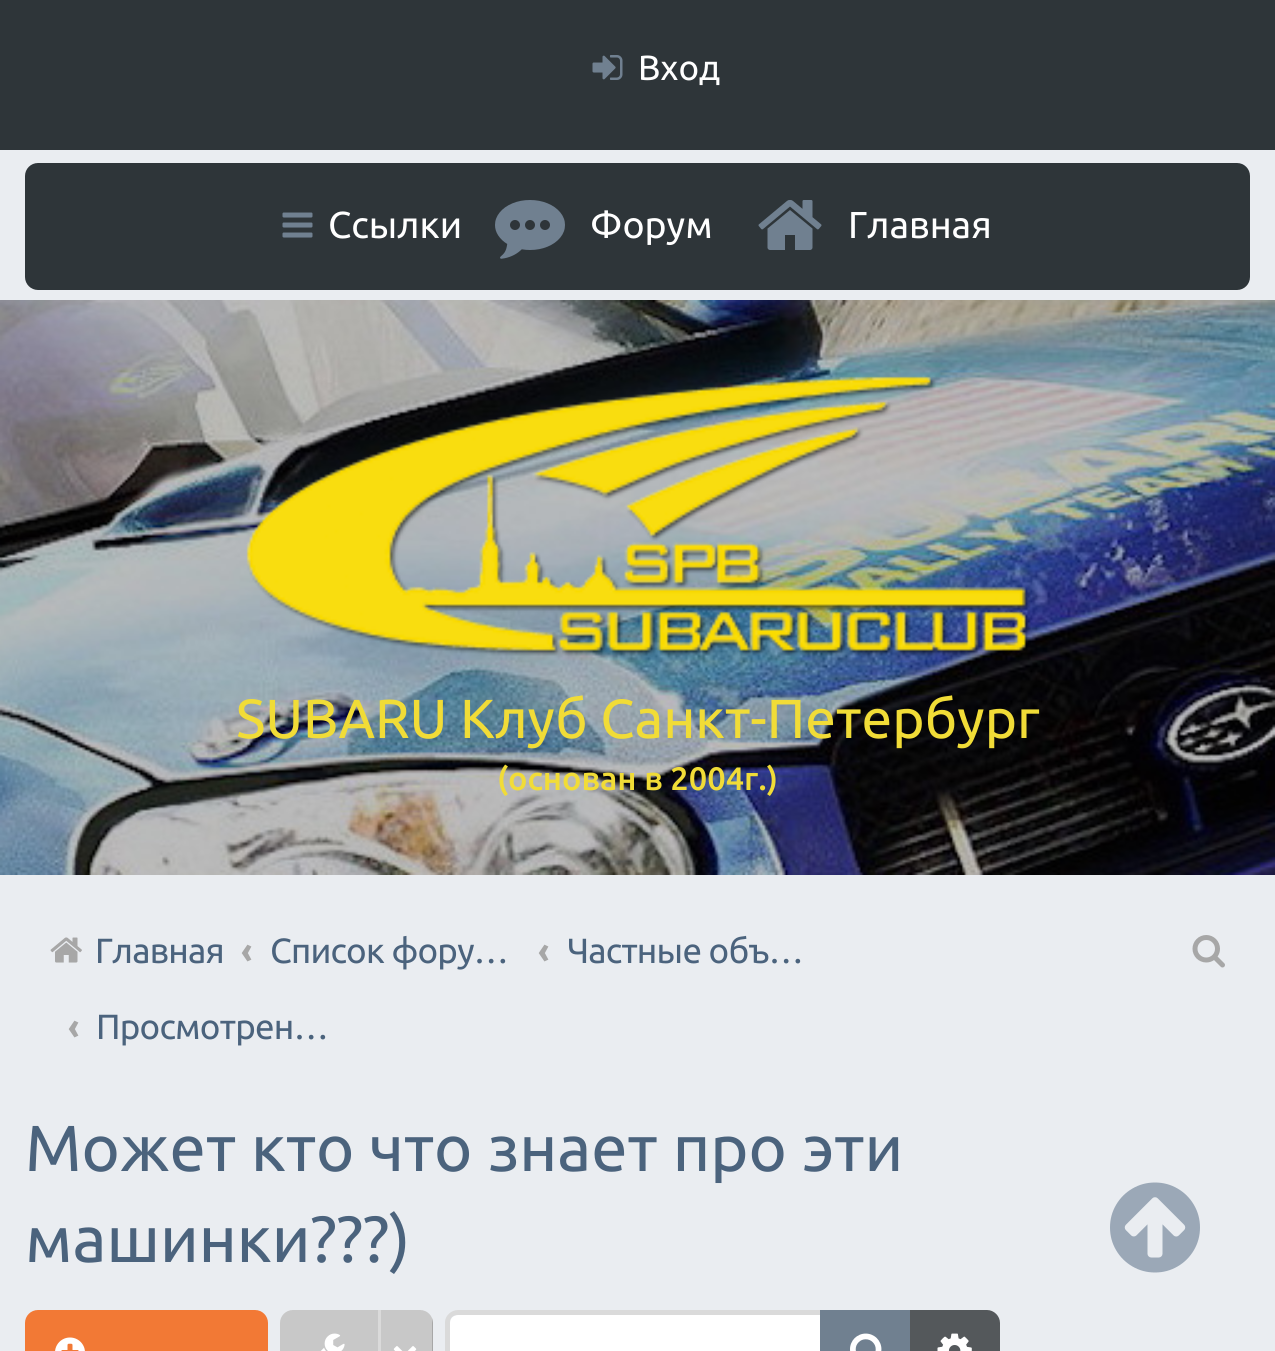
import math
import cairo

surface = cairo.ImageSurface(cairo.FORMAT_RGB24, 1275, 1351)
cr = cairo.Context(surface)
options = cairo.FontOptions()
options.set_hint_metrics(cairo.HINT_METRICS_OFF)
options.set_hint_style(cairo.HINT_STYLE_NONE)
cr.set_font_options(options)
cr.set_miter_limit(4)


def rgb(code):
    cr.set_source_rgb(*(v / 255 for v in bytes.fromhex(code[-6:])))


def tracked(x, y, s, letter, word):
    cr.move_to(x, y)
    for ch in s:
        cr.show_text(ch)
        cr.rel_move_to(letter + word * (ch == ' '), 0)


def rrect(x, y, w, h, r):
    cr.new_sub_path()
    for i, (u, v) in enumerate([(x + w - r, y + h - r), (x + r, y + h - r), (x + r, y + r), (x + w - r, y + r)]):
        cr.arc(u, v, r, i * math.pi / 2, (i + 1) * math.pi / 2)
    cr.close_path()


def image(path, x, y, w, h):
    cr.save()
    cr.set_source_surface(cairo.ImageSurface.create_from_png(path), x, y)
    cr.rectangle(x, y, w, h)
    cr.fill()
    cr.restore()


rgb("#eaedf1")
cr.paint()
rgb("#2e3539")
cr.rectangle(0, 0, 1275, 150)
cr.fill()
image("img/1.png", 592, 55, 31, 25)
rrect(25, 163, 1225, 127, 13)
cr.fill()
image("img/2.png", 282, 212, 31, 26)
image("img/3.png", 495, 200, 70, 59)
image("img/4.png", 758, 200, 64, 50)
image("img/5.png", 50, 937, 32, 26)
image("img/6.png", 1192, 935, 33, 33)
image("img/7.png", 0, 300, 1275, 575)
image("img/8.png", 246, 376, 785, 280)
image("img/9.png", 1110, 1182, 90, 91)
rgb("#f27935")
rrect(25, 1310, 243, 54, 13)
cr.fill()
image("img/10.png", 55, 1337, 30, 14)
rgb("#c8c8c8")
rrect(280, 1310, 153, 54, 13)
cr.fill()
rgb("#a7a7a7")
cr.new_path()
cr.move_to(280, 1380)
cr.line_to(280, 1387)
cr.curve_to(280, 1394, 286, 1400, 293, 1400)
cr.line_to(420, 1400)
cr.curve_to(427, 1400, 433, 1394, 433, 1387)
cr.line_to(433, 1323)
cr.line_to(432, 1318)
cr.line_to(432, 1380)
cr.curve_to(432, 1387, 427, 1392, 420, 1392)
cr.line_to(292, 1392)
cr.curve_to(286, 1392, 280, 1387, 280, 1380)
cr.close_path()
cr.fill()
image("img/11.png", 321, 1333, 24, 18)
rgb("#dadada")
cr.rectangle(378, 1310, 3, 41)
cr.fill()
image("img/12.png", 393, 1346, 24, 5)
rgb("#ffffff")
cr.new_path()
cr.move_to(458, 1315)
cr.line_to(820, 1315)
cr.line_to(820, 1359)
cr.line_to(458, 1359)
cr.curve_to(453.5, 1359, 450, 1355.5, 450, 1351)
cr.line_to(450, 1323)
cr.curve_to(450, 1318.5, 453.5, 1315, 458, 1315)
cr.close_path()
cr.fill()
rgb("#dadada")
cr.set_fill_rule(cairo.FILL_RULE_EVEN_ODD)
cr.new_path()
cr.move_to(458, 1310)
cr.line_to(820, 1310)
cr.line_to(820, 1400)
cr.line_to(458, 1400)
cr.curve_to(451, 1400, 445, 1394, 445, 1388)
cr.line_to(445, 1322)
cr.curve_to(445, 1316, 451, 1310, 458, 1310)
cr.close_path()
cr.move_to(458, 1315)
cr.line_to(820, 1315)
cr.line_to(820, 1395)
cr.line_to(458, 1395)
cr.curve_to(453, 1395, 450, 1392, 450, 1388)
cr.line_to(450, 1322)
cr.curve_to(450, 1318, 453, 1315, 458, 1315)
cr.close_path()
cr.fill()
rgb("#708090")
cr.rectangle(820, 1310, 90, 41)
cr.fill()
image("img/13.png", 850, 1333, 32, 18)
rgb("#54585b")
cr.new_path()
cr.move_to(910, 1310)
cr.line_to(987, 1310)
cr.curve_to(994, 1310, 1000, 1316, 1000, 1323)
cr.line_to(1000, 1351)
cr.curve_to(1000, 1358, 994, 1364, 987, 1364)
cr.line_to(910, 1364)
cr.close_path()
cr.fill()
image("img/14.png", 937, 1333, 35, 18)
cr.select_font_face("Ubuntu")
cr.set_font_size(35)
rgb("#ffffff")
cr.move_to(638, 80)
cr.show_text("Вход")
cr.set_font_size(37.5)
for x, y, s in [
    (328, 238, "Ссылки"),
    (590, 238, "Форум"),
    (848, 238, "Главная"),
]:
    cr.move_to(x, y)
    cr.show_text(s)
cr.set_font_size(35)
rgb("#4b637d")
tracked(95, 963, "Главная", -0.75, 0)
cr.select_font_face("Ubuntu", cairo.FONT_SLANT_NORMAL, cairo.FONT_WEIGHT_BOLD)
rgb("#a7a7a7")
cr.move_to(241, 963)
cr.show_text("‹")
cr.select_font_face("Ubuntu")
rgb("#4b637d")
tracked(270, 963, "Список фору…", -0.75, 0)
cr.select_font_face("Ubuntu", cairo.FONT_SLANT_NORMAL, cairo.FONT_WEIGHT_BOLD)
rgb("#a7a7a7")
cr.move_to(538, 963)
cr.show_text("‹")
cr.select_font_face("Ubuntu")
rgb("#4b637d")
tracked(567, 963, "Частные объ…", -0.75, 0)
cr.select_font_face("Ubuntu", cairo.FONT_SLANT_NORMAL, cairo.FONT_WEIGHT_BOLD)
rgb("#a7a7a7")
cr.move_to(68, 1039)
cr.show_text("‹")
cr.select_font_face("Ubuntu")
rgb("#4b637d")
tracked(96, 1039, "Просмотрен…", -0.75, 0)
cr.set_font_size(55)
rgb("#f1dc37")
cr.move_to(236, 738)
cr.show_text("SUBARU Клуб Санкт-Петербург")
cr.select_font_face("Ubuntu Medium")
cr.set_font_size(32.5)
cr.move_to(497, 790)
cr.show_text("(основан в 2004г.)")
cr.select_font_face("Ubuntu")
cr.set_font_size(65)
rgb("#4b637d")
cr.move_to(25, 1171)
cr.show_text("Может кто что знает про эти")
cr.move_to(25, 1262)
cr.show_text("машинки???)")
surface.write_to_png("page.png")
